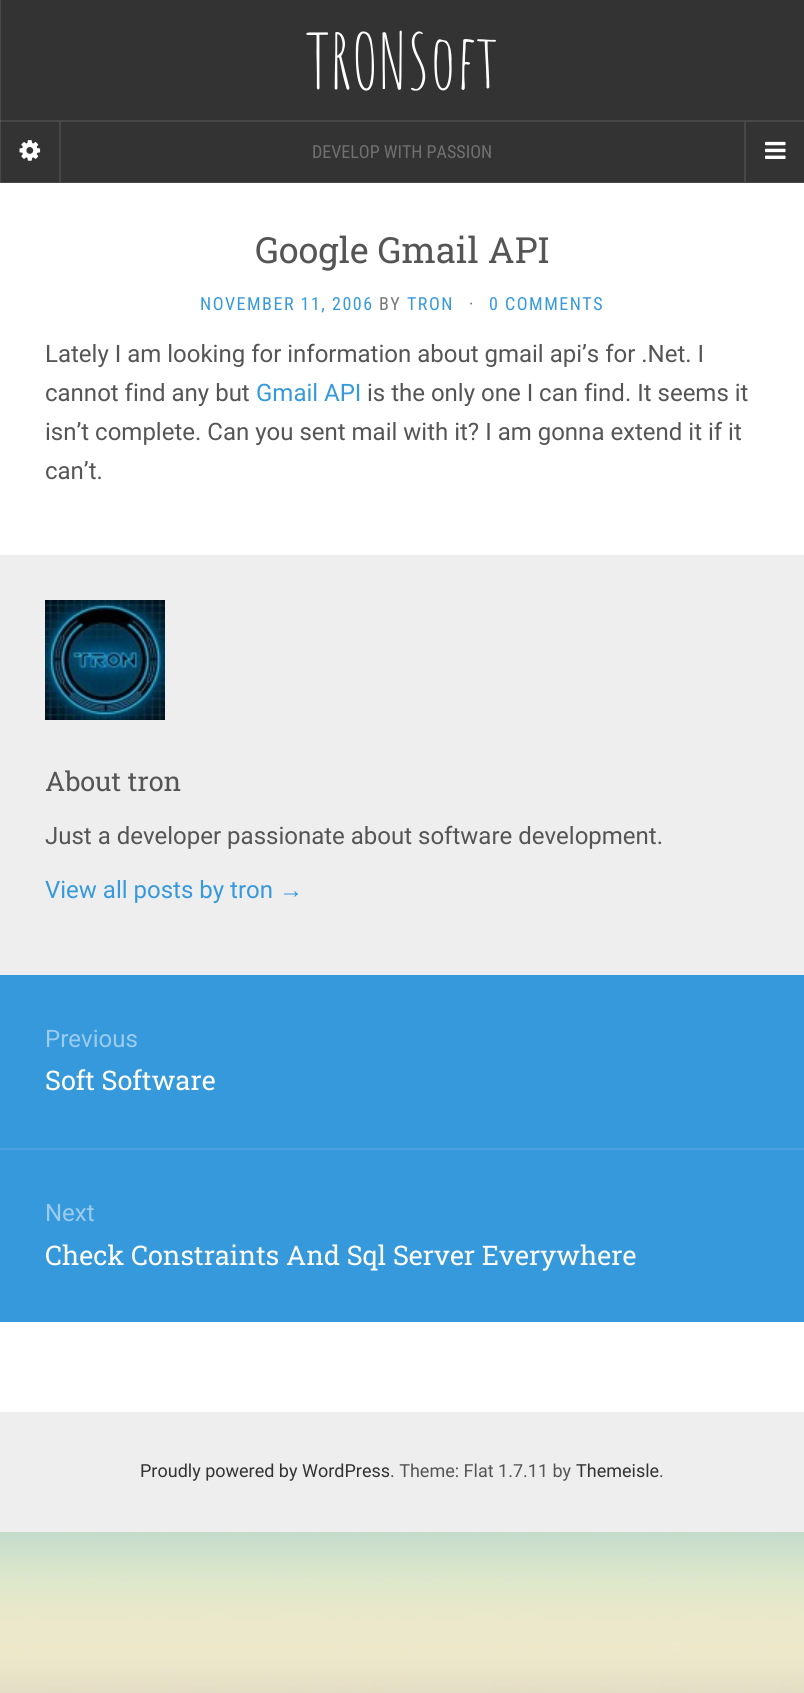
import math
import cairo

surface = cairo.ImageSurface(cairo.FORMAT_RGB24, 804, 1693)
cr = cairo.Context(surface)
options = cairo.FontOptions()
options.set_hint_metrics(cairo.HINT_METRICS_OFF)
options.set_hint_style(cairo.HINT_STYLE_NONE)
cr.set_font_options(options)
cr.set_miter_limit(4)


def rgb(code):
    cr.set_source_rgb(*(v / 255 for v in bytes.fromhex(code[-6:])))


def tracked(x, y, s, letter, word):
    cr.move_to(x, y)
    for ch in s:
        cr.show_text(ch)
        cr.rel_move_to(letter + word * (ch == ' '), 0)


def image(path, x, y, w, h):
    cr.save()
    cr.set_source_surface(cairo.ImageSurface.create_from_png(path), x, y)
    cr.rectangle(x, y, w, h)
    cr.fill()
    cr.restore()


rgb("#ffffff")
cr.paint()
image("img/1.png", 0, 1532, 804, 161)
rgb("#333333")
cr.rectangle(0, 0, 804, 182)
cr.fill()
rgb("#474747")
cr.rectangle(0, 182, 804, 1)
cr.rectangle(0, 120, 804, 2)
cr.fill()
cr.set_source_rgba(1, 1, 1, 0.1)
cr.rectangle(0, 0, 1, 183)
cr.fill()
rgb("#474747")
cr.rectangle(59, 122, 2, 60)
cr.fill()
image("img/2.png", 19, 140, 22, 21)
cr.rectangle(744, 122, 2, 60)
cr.fill()
image("img/3.png", 765, 141, 21, 18)
rgb("#eeeeee")
cr.rectangle(0, 555, 804, 420)
cr.fill()
image("img/4.png", 45, 600, 120, 120)
for x, y, w, h, color in [
    (0, 975, 804, 347, "#3699dc"),
    (0, 1148, 804, 2, "#4aa3e0"),
    (0, 1412, 804, 120, "#eeeeee"),
]:
    rgb(color)
    cr.rectangle(x, y, w, h)
    cr.fill()
cr.select_font_face("Amatic SC")
cr.set_font_size(75)
rgb("#ffffff")
cr.move_to(306, 89)
cr.show_text("TRONSoft")
cr.select_font_face("Roboto Condensed")
cr.set_font_size(18)
rgb("#707070")
cr.move_to(312, 158)
cr.show_text("DEVELOP WITH PASSION")
cr.select_font_face("Roboto Slab")
cr.set_font_size(36)
rgb("#555555")
cr.move_to(255, 263)
cr.show_text("Google Gmail API")
cr.select_font_face("Roboto Condensed")
cr.set_font_size(18)
rgb("#3699dc")
tracked(200, 310, "NOVEMBER 11, 2006", 1.5, 0)
rgb("#777777")
tracked(379, 310, "BY", 1.5, 0)
rgb("#3699dc")
tracked(407, 310, "TRON", 1.5, 0)
rgb("#777777")
tracked(469, 310, "·", 1.5, 0)
rgb("#3699dc")
tracked(489, 310, "0 COMMENTS", 1.5, 0)
cr.select_font_face("Roboto")
cr.set_font_size(24)
rgb("#555555")
cr.move_to(45, 362)
cr.show_text("Lately I am looking for information about gmail api’s for .Net. I")
cr.move_to(45, 401)
cr.show_text("cannot find any but")
rgb("#3699dc")
cr.move_to(256, 401)
cr.show_text("Gmail API")
rgb("#555555")
for x, y, s in [
    (367, 401, "is the only one I can find. It seems it"),
    (45, 440, "isn’t complete. Can you sent mail with it? I am gonna extend it if it"),
    (45, 479, "can’t."),
]:
    cr.move_to(x, y)
    cr.show_text(s)
cr.select_font_face("Roboto Slab")
cr.set_font_size(27)
cr.move_to(45, 791)
cr.show_text("About tron")
cr.select_font_face("Roboto")
cr.set_font_size(24)
cr.move_to(45, 844)
cr.show_text("Just a developer passionate about software development.")
rgb("#3699dc")
cr.move_to(45, 898)
cr.show_text("View all posts by tron")
cr.select_font_face("Liberation Serif")
cr.move_to(279, 898)
cr.show_text("→")
cr.select_font_face("Roboto")
rgb("#9bccee")
cr.move_to(45, 1047)
cr.show_text("Previous")
cr.select_font_face("Roboto Slab")
cr.set_font_size(27)
rgb("#ffffff")
cr.move_to(45, 1090)
cr.show_text("Soft Software")
cr.select_font_face("Roboto")
cr.set_font_size(24)
rgb("#9bccee")
cr.move_to(45, 1221)
cr.show_text("Next")
cr.select_font_face("Roboto Slab")
cr.set_font_size(27)
rgb("#ffffff")
cr.move_to(45, 1265)
cr.show_text("Check Constraints And Sql Server Everywhere")
cr.select_font_face("Roboto")
cr.set_font_size(18)
rgb("#333333")
cr.move_to(140, 1477)
cr.show_text("Proudly powered by WordPress")
rgb("#555555")
cr.move_to(390, 1477)
cr.show_text(". Theme: Flat 1.7.11 by")
rgb("#333333")
cr.move_to(576, 1477)
cr.show_text("Themeisle")
rgb("#555555")
cr.move_to(659, 1477)
cr.show_text(".")
surface.write_to_png("page.png")
